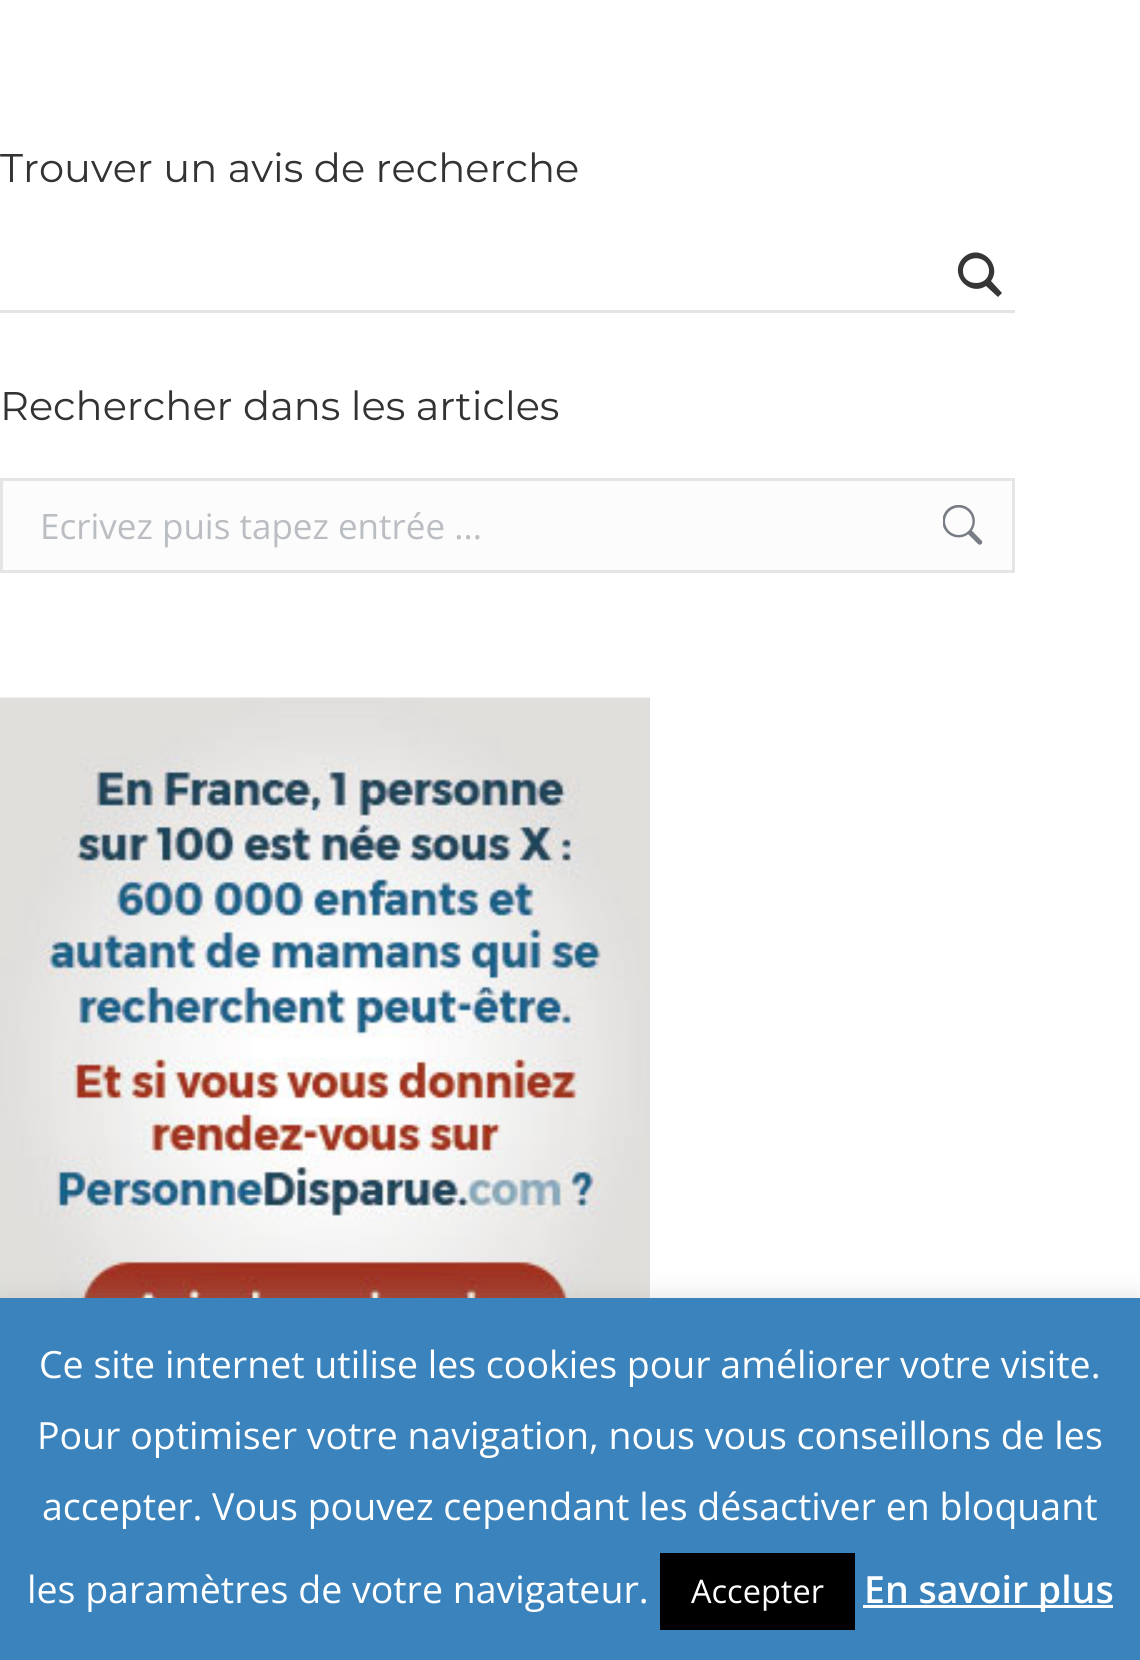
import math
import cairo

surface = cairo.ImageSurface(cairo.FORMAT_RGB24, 1140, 1660)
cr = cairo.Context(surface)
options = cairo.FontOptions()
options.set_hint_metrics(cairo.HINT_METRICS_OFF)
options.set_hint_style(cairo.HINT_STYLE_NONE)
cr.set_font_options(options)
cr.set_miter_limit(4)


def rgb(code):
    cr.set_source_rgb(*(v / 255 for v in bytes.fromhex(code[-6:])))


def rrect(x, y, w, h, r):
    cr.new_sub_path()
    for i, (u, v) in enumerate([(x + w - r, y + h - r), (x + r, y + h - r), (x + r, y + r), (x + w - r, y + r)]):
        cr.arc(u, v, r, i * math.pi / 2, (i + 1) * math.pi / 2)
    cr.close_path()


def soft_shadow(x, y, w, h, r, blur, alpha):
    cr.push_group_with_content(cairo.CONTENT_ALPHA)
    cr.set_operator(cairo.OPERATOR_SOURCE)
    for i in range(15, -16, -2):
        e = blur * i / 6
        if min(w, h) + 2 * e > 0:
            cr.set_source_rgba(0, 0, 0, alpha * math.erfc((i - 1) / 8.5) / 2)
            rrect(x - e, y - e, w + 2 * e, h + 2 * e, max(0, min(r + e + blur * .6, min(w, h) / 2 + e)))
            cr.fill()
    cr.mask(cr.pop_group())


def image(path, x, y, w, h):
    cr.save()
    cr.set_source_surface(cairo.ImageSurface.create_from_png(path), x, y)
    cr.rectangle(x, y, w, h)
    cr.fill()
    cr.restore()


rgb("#ffffff")
cr.paint()
rgb("#e4e4e4")
cr.rectangle(0, 310, 1015, 3)
cr.fill()
rgb("#363636")
cr.new_path()
cr.move_to(1002, 293)
cr.line_to(991, 281)
cr.curve_to(1003, 264, 979, 242, 963, 258)
cr.curve_to(948, 274, 969, 297, 986, 286)
cr.line_to(998, 297)
cr.close_path()
cr.move_to(963, 271)
cr.curve_to(963, 254, 989, 254, 989, 271)
cr.curve_to(989, 287, 963, 287, 963, 271)
cr.close_path()
cr.fill()
rgb("#fcfcfc")
cr.rectangle(1.5, 479.5, 1012, 92)
cr.fill_preserve()
rgb("#e4e5e7")
cr.set_line_width(3)
cr.stroke()
image("img/1.png", 943, 505, 40, 40)
image("img/2.png", 0, 697, 650, 601)
rgb("#acabab")
soft_shadow(0, 1295, 1140, 363, 0, 12.5, 0.3)
for x, y, w, h, color in [
    (0, 1298, 1140, 362, "#3b83bd"),
    (660, 1553, 195, 77, "#000000"),
    (863, 1605, 250, 3, "#ffffff"),
]:
    rgb(color)
    cr.rectangle(x, y, w, h)
    cr.fill()
cr.select_font_face("Montserrat")
cr.set_font_size(40)
rgb("#333333")
cr.move_to(0, 182)
cr.show_text("Trouver un avis de recherche")
cr.move_to(0, 420)
cr.show_text("Rechercher dans les articles")
cr.select_font_face("Open Sans")
cr.set_font_size(35)
rgb("#babdc1")
cr.move_to(40, 539)
cr.show_text("Ecrivez puis tapez entrée ...")
cr.set_font_size(37.5)
rgb("#ffffff")
for x, y, s in [
    (39, 1378, "Ce site internet utilise les cookies pour améliorer votre visite."),
    (37, 1449, "Pour optimiser votre navigation, nous vous conseillons de les"),
    (42, 1520, "accepter. Vous pouvez cependant les désactiver en bloquant"),
    (27, 1603, "les paramètres de votre navigateur."),
]:
    cr.move_to(x, y)
    cr.show_text(s)
cr.set_font_size(32.5)
cr.move_to(691, 1603)
cr.show_text("Accepter")
cr.select_font_face("Open Sans SemiBold")
cr.set_font_size(37.5)
cr.move_to(864, 1603)
cr.show_text("En savoir plus")
surface.write_to_png("page.png")
